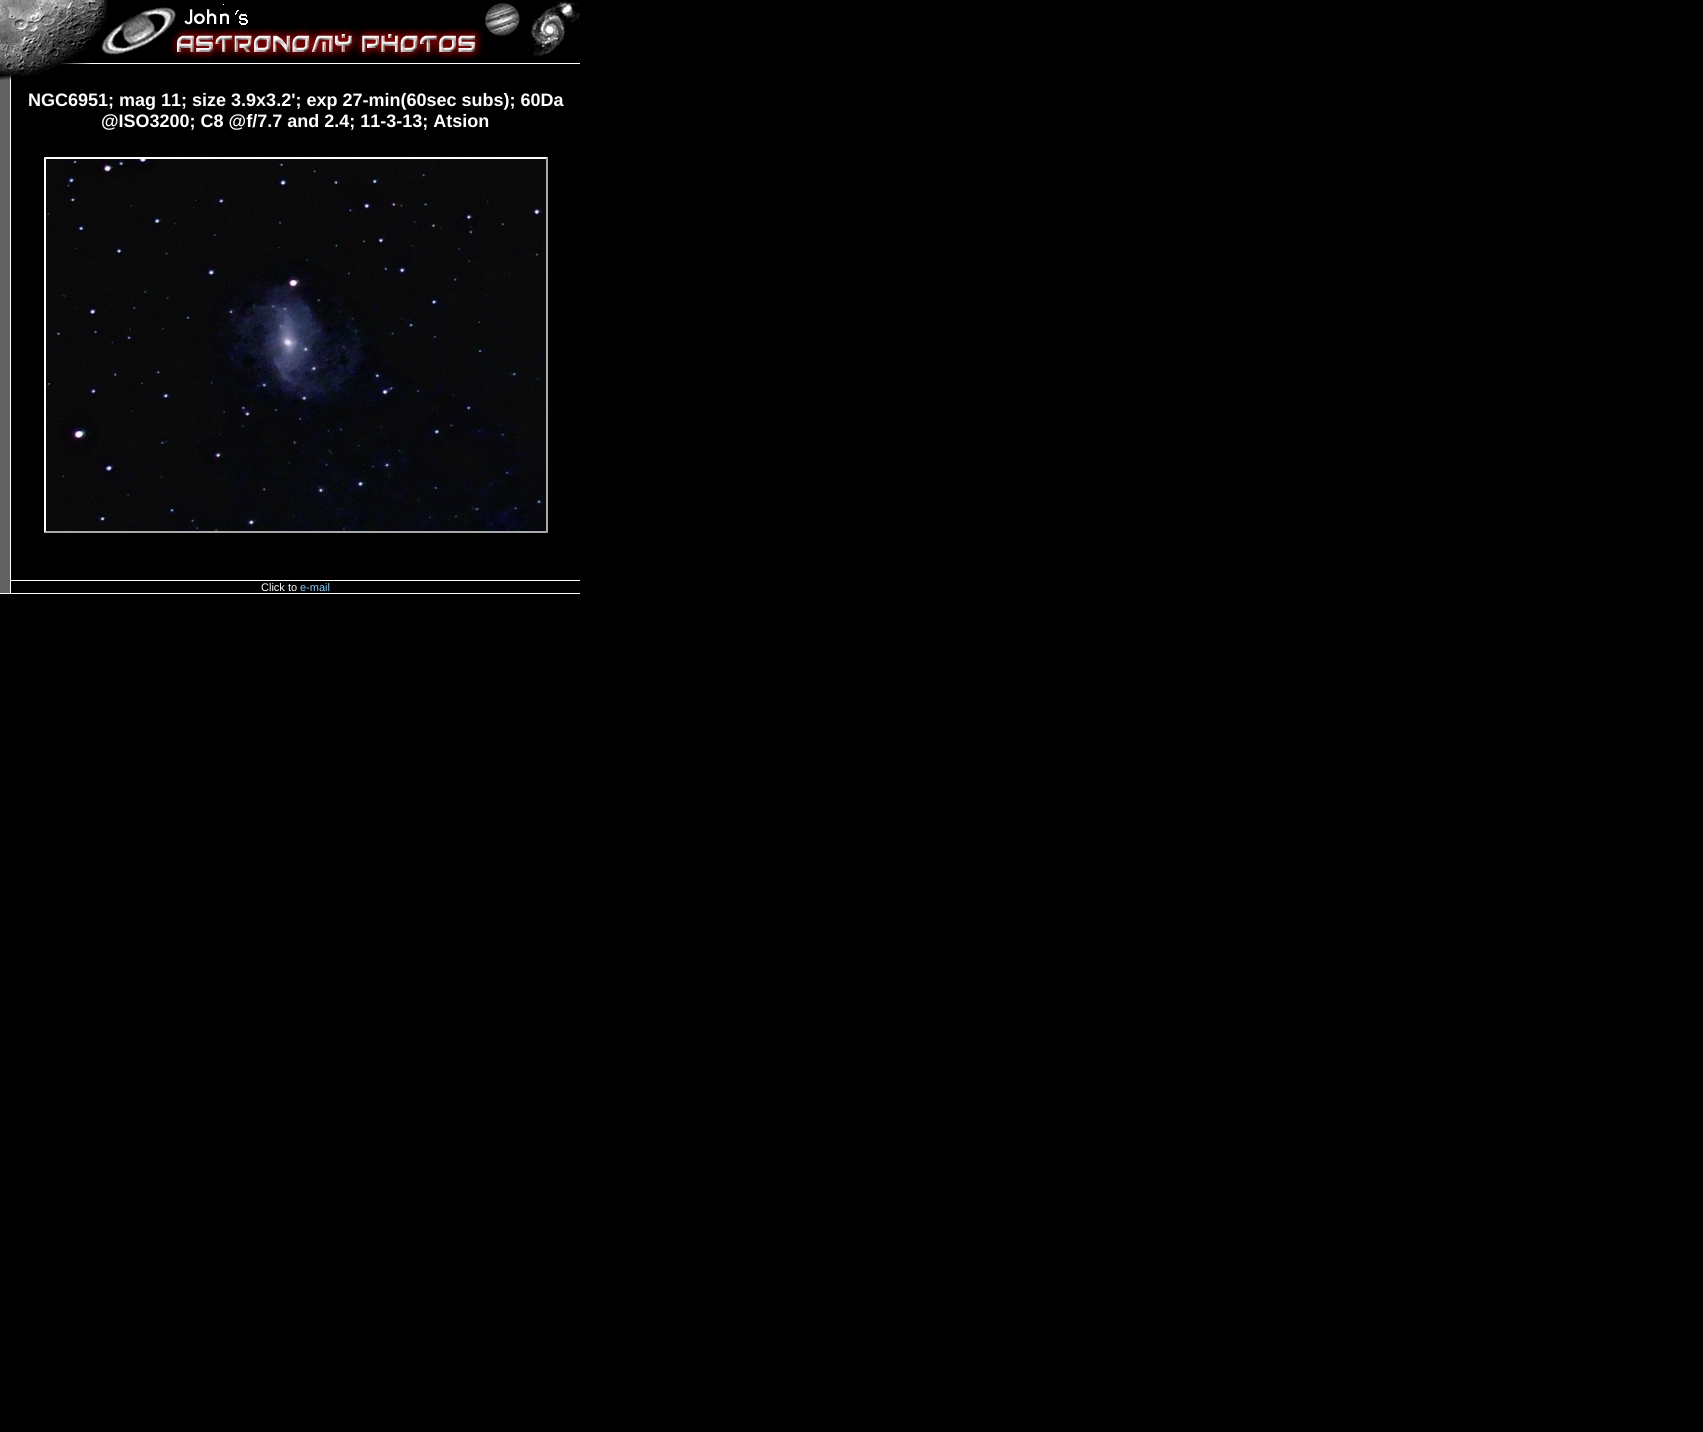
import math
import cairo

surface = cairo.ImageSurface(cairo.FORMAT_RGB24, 1703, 1432)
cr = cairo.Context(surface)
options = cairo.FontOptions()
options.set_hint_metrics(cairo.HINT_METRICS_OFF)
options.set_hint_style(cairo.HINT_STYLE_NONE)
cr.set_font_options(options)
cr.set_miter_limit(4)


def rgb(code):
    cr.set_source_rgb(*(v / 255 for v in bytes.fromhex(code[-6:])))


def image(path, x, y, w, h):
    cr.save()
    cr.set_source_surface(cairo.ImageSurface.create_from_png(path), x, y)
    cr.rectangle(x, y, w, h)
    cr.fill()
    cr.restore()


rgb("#000000")
cr.paint()
image("img/1.png", 0, 0, 580, 80)
rgb("#626262")
cr.rectangle(0, 80, 10, 513)
cr.fill()
rgb("#ffffff")
cr.rectangle(10, 80, 1, 513)
cr.fill()
cr.new_path()
cr.move_to(44, 157)
cr.line_to(548, 157)
cr.line_to(546, 159)
cr.line_to(46, 159)
cr.close_path()
cr.fill()
rgb("#aaaaaa")
cr.new_path()
cr.move_to(548, 157)
cr.line_to(548, 533)
cr.line_to(546, 531)
cr.line_to(546, 159)
cr.close_path()
cr.fill()
cr.new_path()
cr.move_to(548, 533)
cr.line_to(44, 533)
cr.line_to(46, 531)
cr.line_to(546, 531)
cr.close_path()
cr.fill()
rgb("#ffffff")
cr.new_path()
cr.move_to(44, 533)
cr.line_to(44, 157)
cr.line_to(46, 159)
cr.line_to(46, 531)
cr.close_path()
cr.fill()
image("img/2.png", 46, 159, 500, 372)
cr.rectangle(11, 580, 569, 1)
cr.fill()
cr.rectangle(0, 593, 580, 1)
cr.fill()
cr.select_font_face("Liberation Sans", cairo.FONT_SLANT_NORMAL, cairo.FONT_WEIGHT_BOLD)
cr.set_font_size(18)
cr.move_to(28, 106)
cr.show_text("NGC6951; mag 11; size 3.9x3.2'; exp 27-min(60sec subs); 60Da")
cr.move_to(101, 127)
cr.show_text("@ISO3200; C8 @f/7.7 and 2.4; 11-3-13; Atsion")
cr.select_font_face("Liberation Sans")
cr.set_font_size(11)
cr.move_to(261, 591)
cr.show_text("Click to")
rgb("#87cefa")
cr.move_to(300, 591)
cr.show_text("e-mail")
surface.write_to_png("page.png")
